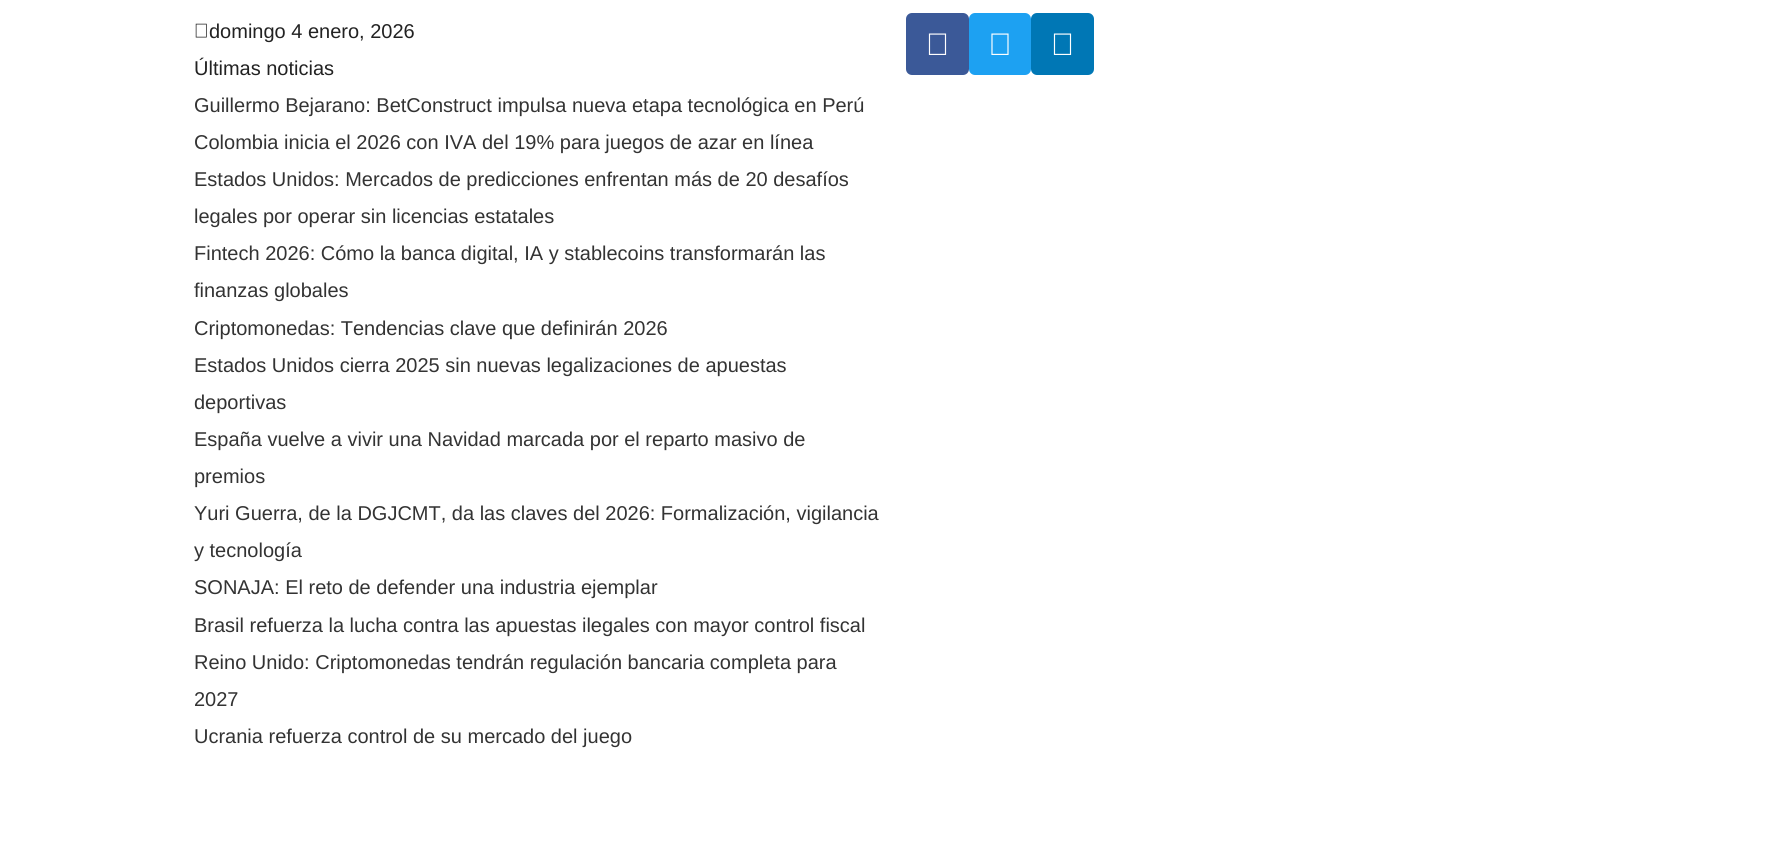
import math
import cairo

surface = cairo.ImageSurface(cairo.FORMAT_RGB24, 1787, 857)
cr = cairo.Context(surface)
options = cairo.FontOptions()
options.set_hint_metrics(cairo.HINT_METRICS_OFF)
options.set_hint_style(cairo.HINT_STYLE_NONE)
cr.set_font_options(options)
cr.set_miter_limit(4)


def rgb(code):
    cr.set_source_rgb(*(v / 255 for v in bytes.fromhex(code[-6:])))


def rrect(x, y, w, h, r):
    cr.new_sub_path()
    for i, (u, v) in enumerate([(x + w - r, y + h - r), (x + r, y + h - r), (x + r, y + r), (x + w - r, y + r)]):
        cr.arc(u, v, r, i * math.pi / 2, (i + 1) * math.pi / 2)
    cr.close_path()


def image(path, x, y, w, h):
    cr.save()
    cr.set_source_surface(cairo.ImageSurface.create_from_png(path), x, y)
    cr.rectangle(x, y, w, h)
    cr.fill()
    cr.restore()


rgb("#ffffff")
cr.paint()
image("img/1.png", 195, 23, 12, 15)
rgb("#3b5998")
rrect(906, 13, 63, 62, 6)
cr.fill()
image("img/2.png", 928, 33, 19, 22)
rgb("#1da1f2")
rrect(969, 13, 62, 62, 6)
cr.fill()
image("img/3.png", 991, 33, 18, 22)
rgb("#0077b5")
rrect(1031, 13, 63, 62, 6)
cr.fill()
image("img/4.png", 1053, 33, 19, 22)
cr.select_font_face("Liberation Sans")
cr.set_font_size(20)
rgb("#222222")
cr.move_to(209, 38)
cr.show_text("domingo 4 enero, 2026")
cr.move_to(194, 75)
cr.show_text("Últimas noticias")
rgb("#333333")
for x, y, s in [
    (194, 112, "Guillermo Bejarano: BetConstruct impulsa nueva etapa tecnológica en Perú"),
    (194, 149, "Colombia inicia el 2026 con IVA del 19% para juegos de azar en línea"),
    (194, 186, "Estados Unidos: Mercados de predicciones enfrentan más de 20 desafíos"),
    (194, 223, "legales por operar sin licencias estatales"),
    (194, 260, "Fintech 2026: Cómo la banca digital, IA y stablecoins transformarán las"),
    (194, 297, "finanzas globales"),
    (194, 335, "Criptomonedas: Tendencias clave que definirán 2026"),
    (194, 372, "Estados Unidos cierra 2025 sin nuevas legalizaciones de apuestas"),
    (194, 409, "deportivas"),
    (194, 446, "España vuelve a vivir una Navidad marcada por el reparto masivo de"),
    (194, 483, "premios"),
    (194, 520, "Yuri Guerra, de la DGJCMT, da las claves del 2026: Formalización, vigilancia"),
    (194, 557, "y tecnología"),
    (194, 594, "SONAJA: El reto de defender una industria ejemplar"),
    (194, 632, "Brasil refuerza la lucha contra las apuestas ilegales con mayor control fiscal"),
    (194, 669, "Reino Unido: Criptomonedas tendrán regulación bancaria completa para"),
    (194, 706, "2027"),
    (194, 743, "Ucrania refuerza control de su mercado del juego"),
]:
    cr.move_to(x, y)
    cr.show_text(s)
surface.write_to_png("page.png")
